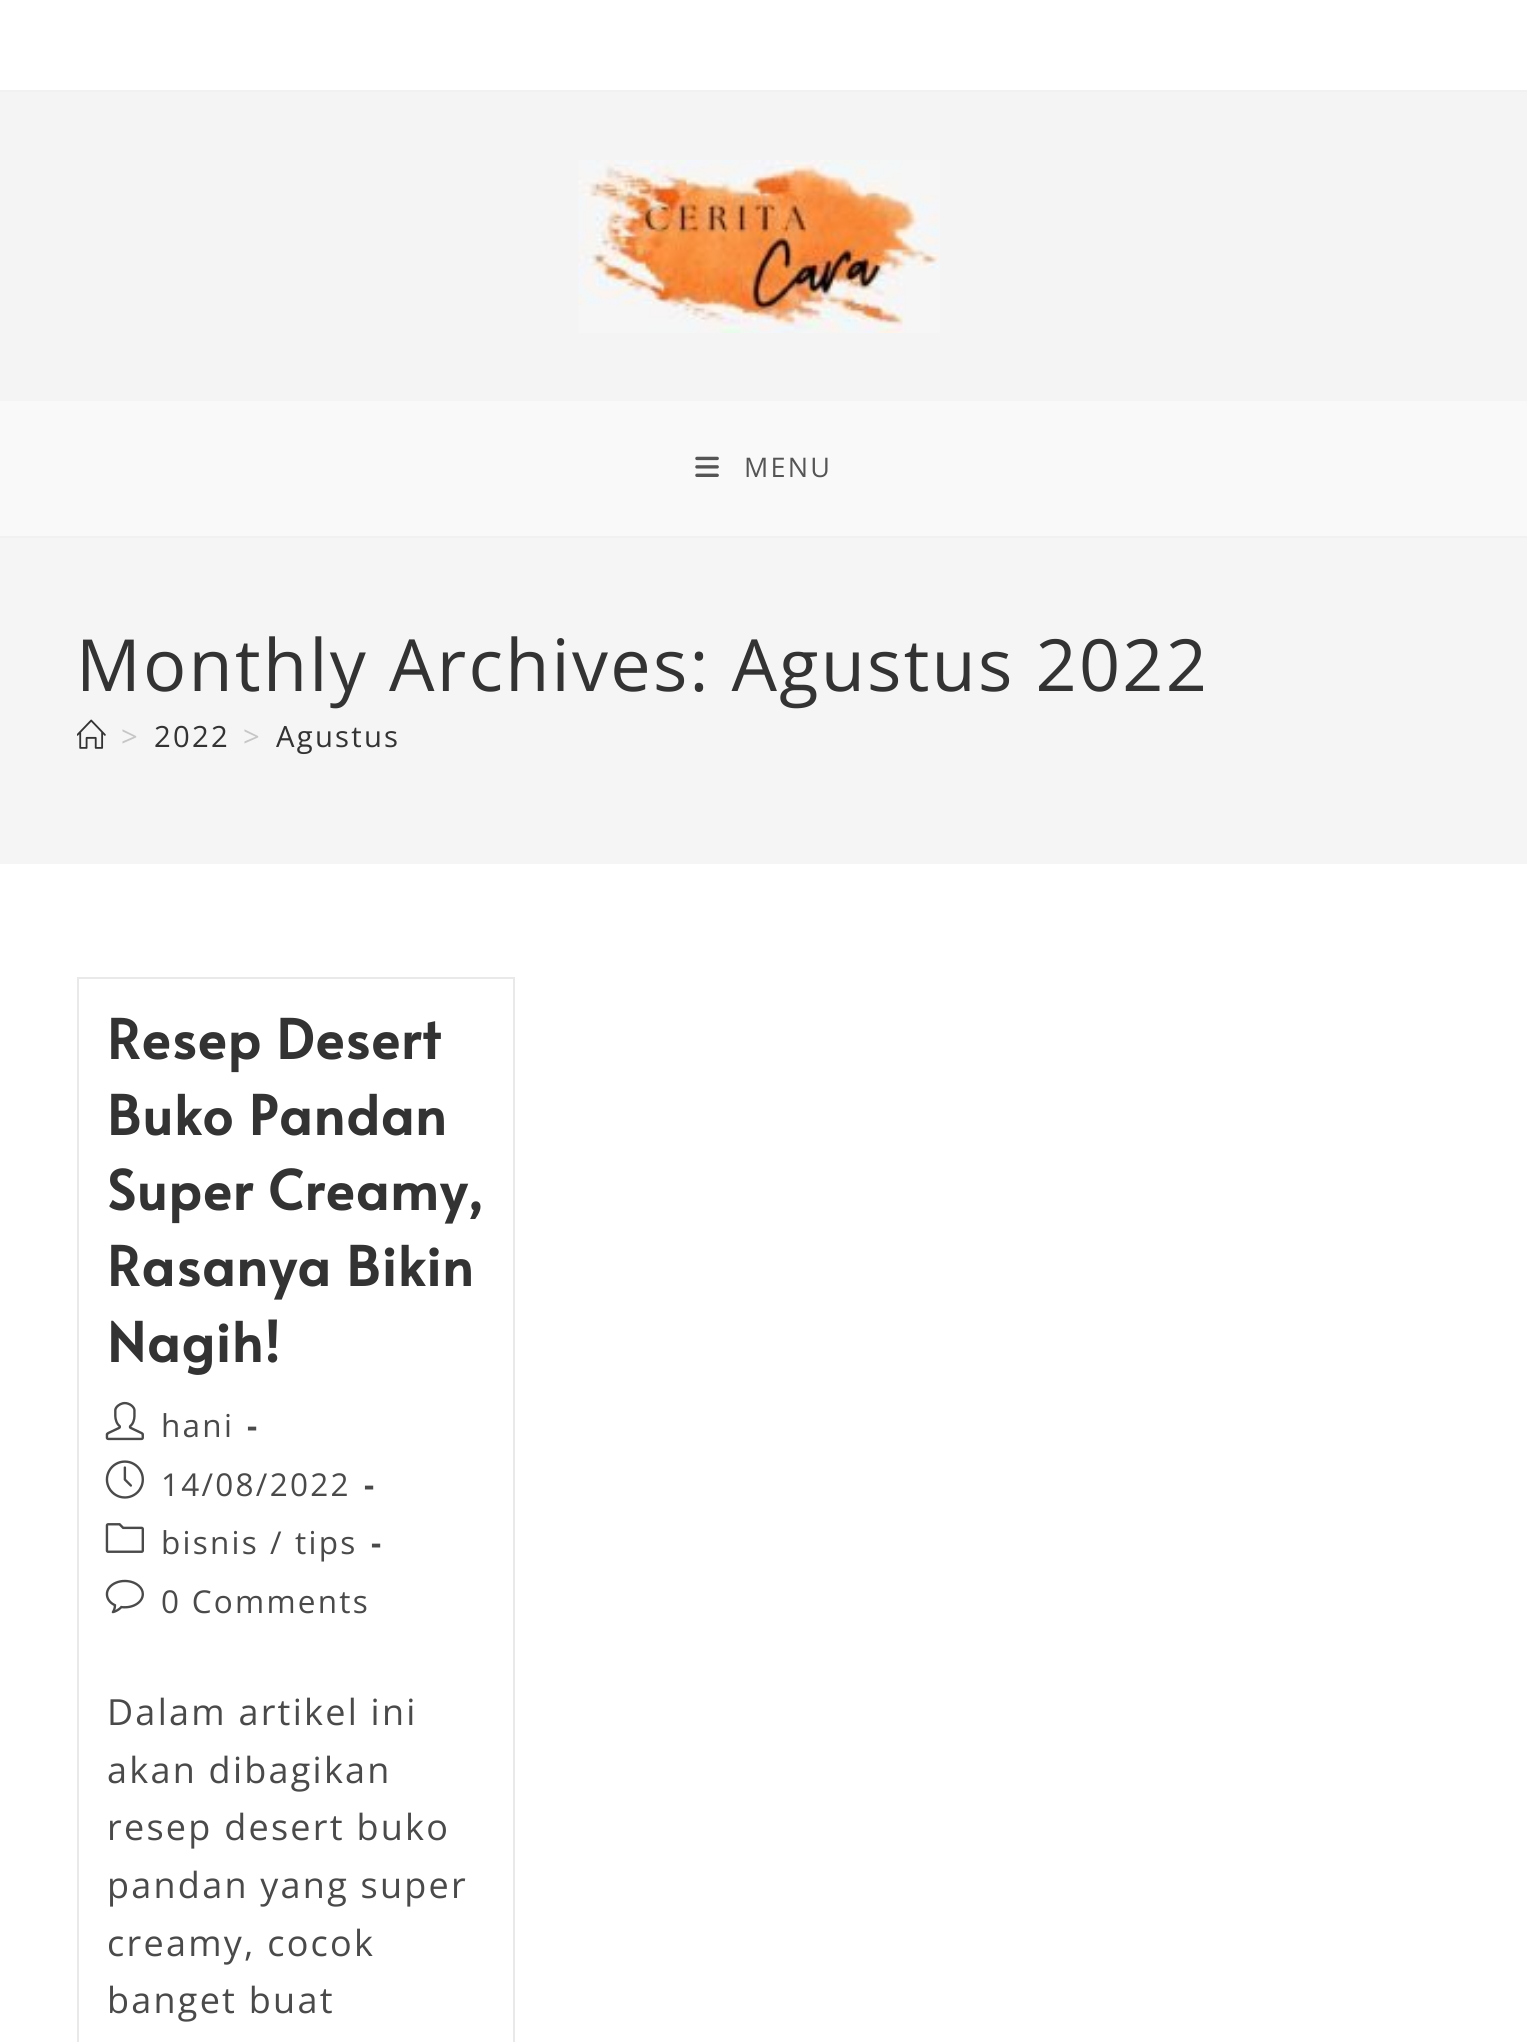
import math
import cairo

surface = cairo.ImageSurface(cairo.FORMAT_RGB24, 1527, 2042)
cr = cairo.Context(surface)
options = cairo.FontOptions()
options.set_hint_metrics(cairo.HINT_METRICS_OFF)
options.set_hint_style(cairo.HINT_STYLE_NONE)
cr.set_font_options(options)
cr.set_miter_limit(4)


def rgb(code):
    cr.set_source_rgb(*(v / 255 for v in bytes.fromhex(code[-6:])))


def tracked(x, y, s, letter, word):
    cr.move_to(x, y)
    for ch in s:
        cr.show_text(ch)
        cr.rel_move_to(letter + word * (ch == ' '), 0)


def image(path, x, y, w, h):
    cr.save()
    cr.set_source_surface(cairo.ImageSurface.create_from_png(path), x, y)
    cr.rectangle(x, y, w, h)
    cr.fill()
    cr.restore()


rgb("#ffffff")
cr.paint()
for x, y, w, h, color in [
    (0, 90, 1527, 2, "#f1f1f1"),
    (0, 536, 1527, 2, "#f1f1f1"),
    (0, 92, 1527, 309, "#f4f4f4"),
]:
    rgb(color)
    cr.rectangle(x, y, w, h)
    cr.fill()
image("img/1.png", 578, 160, 362, 173)
rgb("#f9f9f9")
cr.rectangle(0, 401, 1527, 135)
cr.fill()
image("img/2.png", 695, 456, 24, 21)
rgb("#f5f5f5")
cr.rectangle(0, 538, 1527, 326)
cr.fill()
image("img/3.png", 77, 719, 29, 30)
cr.rectangle(78, 978, 436, 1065)
rgb("#e9e9e9")
cr.stroke()
image("img/4.png", 105, 1401, 39, 40)
image("img/5.png", 105, 1460, 39, 39)
image("img/6.png", 105, 1523, 39, 30)
image("img/7.png", 105, 1579, 39, 35)
cr.select_font_face("Open Sans")
cr.set_font_size(27)
rgb("#555555")
tracked(744, 477, "MENU", 2.25, 0)
cr.set_font_size(72)
rgb("#333333")
tracked(76, 691, "Monthly Archives: Agustus 2022", 2.25, 0)
cr.set_font_size(29.25)
rgb("#c6c6c6")
tracked(121, 747, ">", 2.25, 0)
rgb("#333333")
tracked(154, 747, "2022", 2.25, 0)
rgb("#c6c6c6")
tracked(243, 747, ">", 2.25, 0)
rgb("#333333")
tracked(276, 747, "Agustus", 2.25, 0)
cr.select_font_face("Alata", cairo.FONT_SLANT_NORMAL, cairo.FONT_WEIGHT_BOLD)
cr.set_font_size(54)
for x, y, s in [
    (107, 1059, "Resep Desert"),
    (107, 1135, "Buko Pandan"),
    (107, 1210, "Super Creamy,"),
    (107, 1286, "Rasanya Bikin"),
    (107, 1362, "Nagih!"),
]:
    tracked(x, y, s, 1.4, 0)
cr.select_font_face("Open Sans")
cr.set_font_size(31.5)
rgb("#4a4a4a")
tracked(161, 1437, "hani", 2.25, 0)
cr.select_font_face("Open Sans", cairo.FONT_SLANT_NORMAL, cairo.FONT_WEIGHT_BOLD)
tracked(247, 1437, "-", 2.25, 0)
cr.select_font_face("Open Sans")
tracked(161, 1496, "14/08/2022", 2.25, 0)
cr.select_font_face("Open Sans", cairo.FONT_SLANT_NORMAL, cairo.FONT_WEIGHT_BOLD)
tracked(364, 1496, "-", 2.25, 0)
cr.select_font_face("Open Sans")
for x, y, s in [
    (161, 1554, "bisnis"),
    (270, 1554, "/"),
    (295, 1554, "tips"),
]:
    tracked(x, y, s, 2.25, 0)
cr.select_font_face("Open Sans", cairo.FONT_SLANT_NORMAL, cairo.FONT_WEIGHT_BOLD)
tracked(371, 1554, "-", 2.25, 0)
cr.select_font_face("Open Sans")
tracked(161, 1613, "0 Comments", 2.25, 0)
cr.set_font_size(36)
for x, y, s in [
    (107, 1725, "Dalam artikel ini"),
    (107, 1783, "akan dibagikan"),
    (107, 1840, "resep desert buko"),
    (107, 1898, "pandan yang super"),
    (107, 1956, "creamy, cocok"),
    (107, 2013, "banget buat"),
]:
    tracked(x, y, s, 2.25, 0)
surface.write_to_png("page.png")
